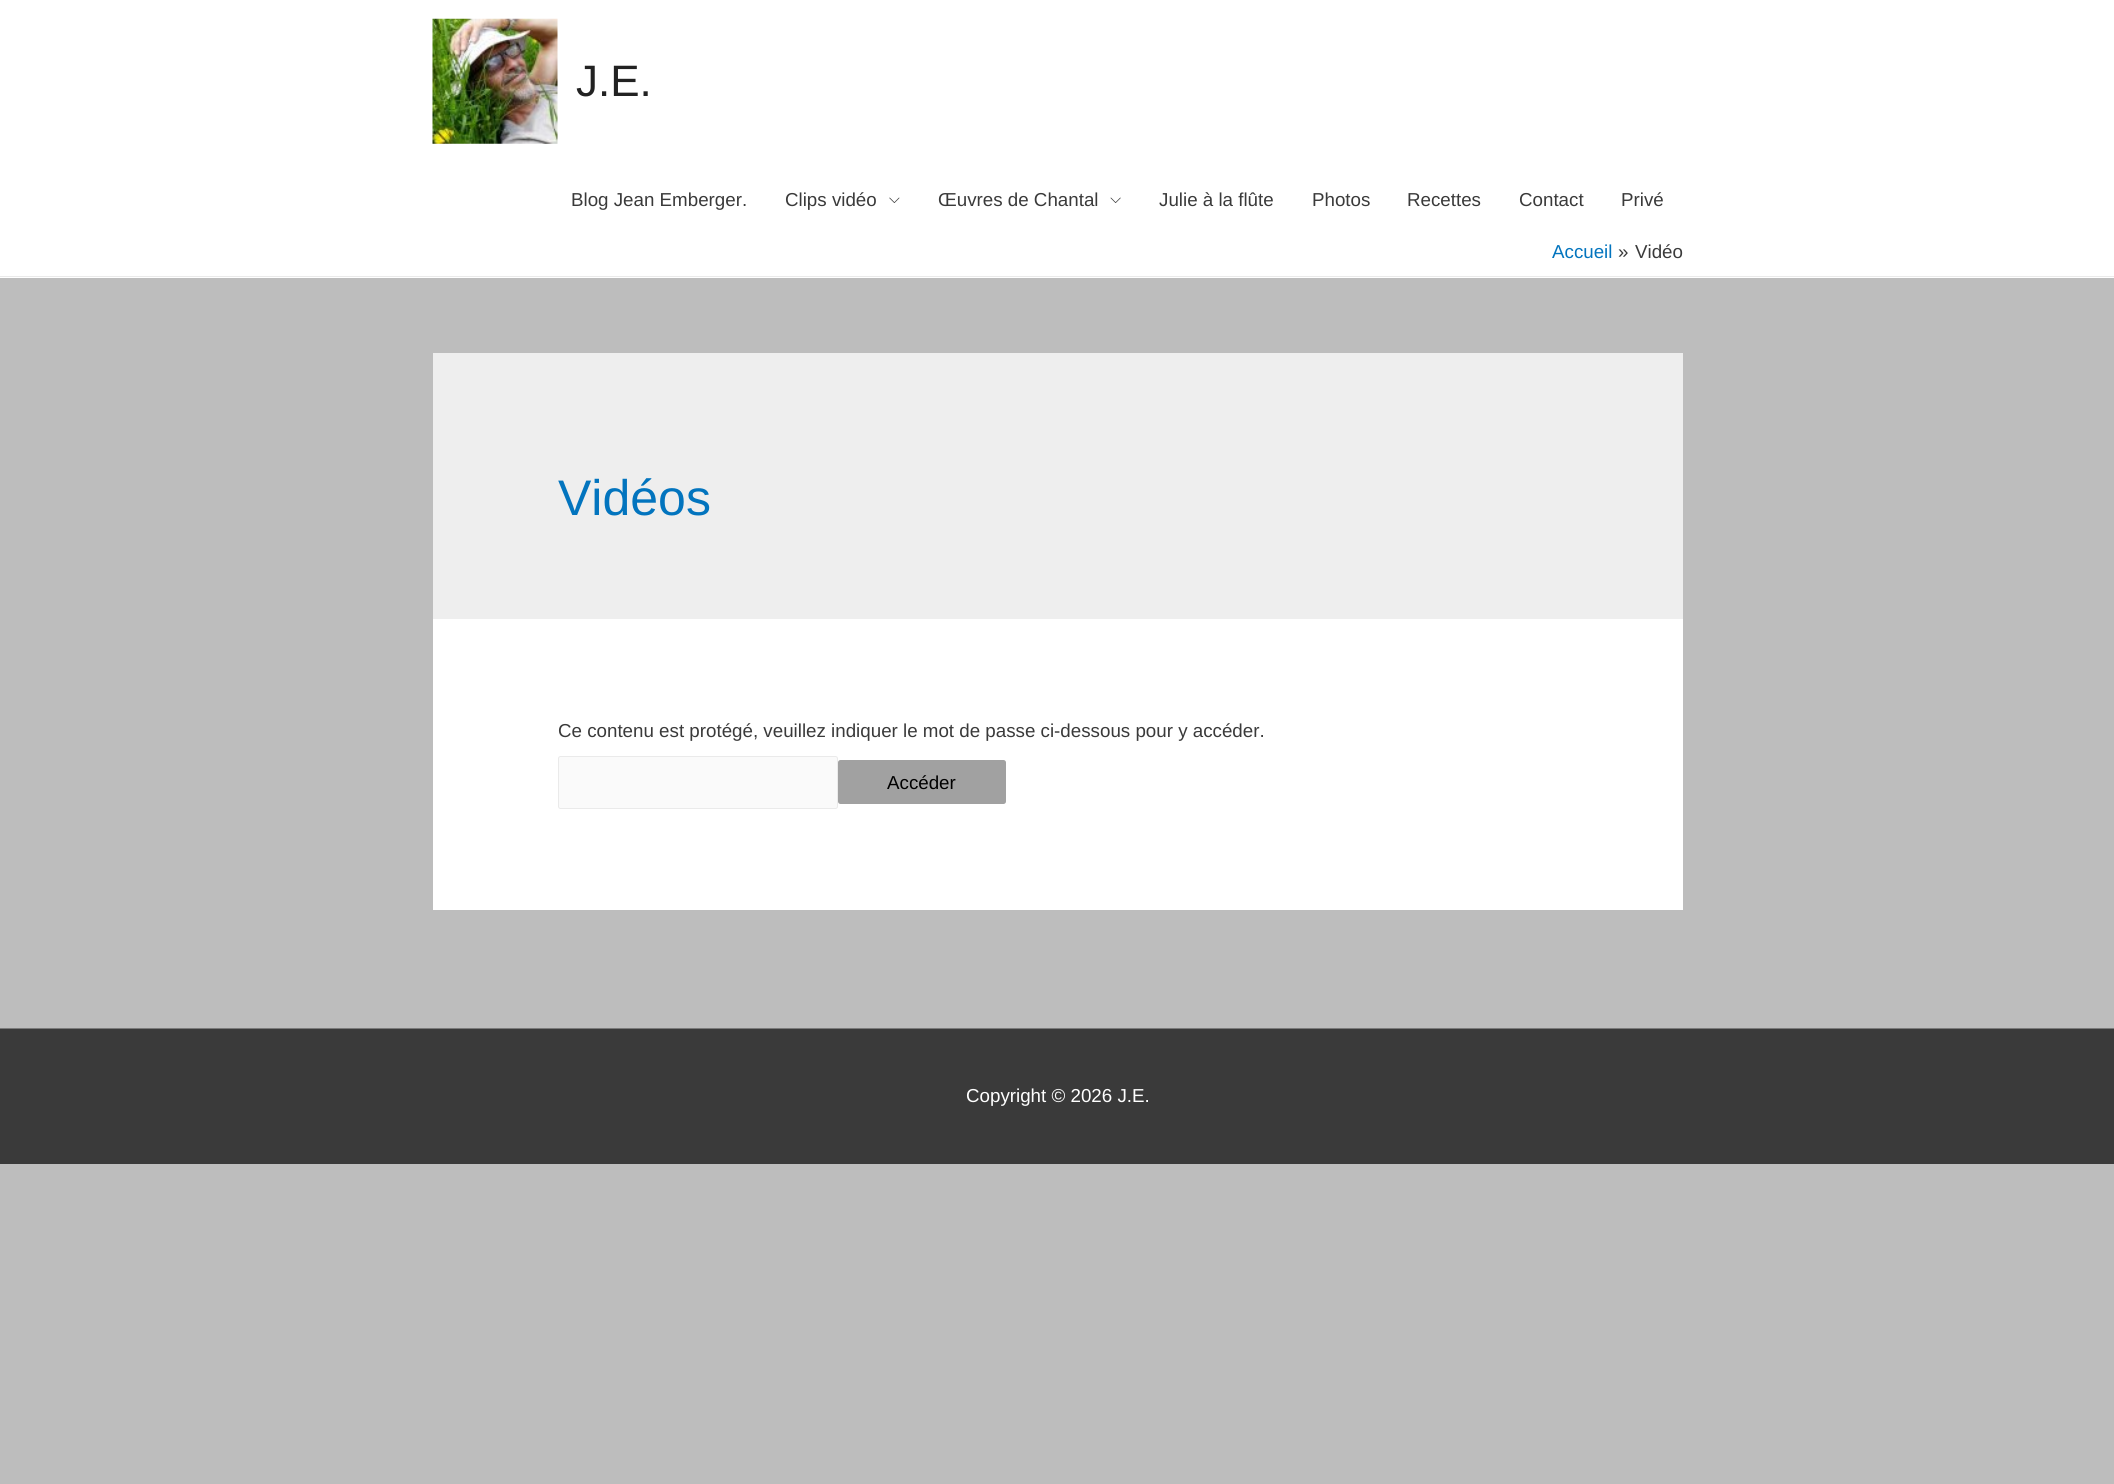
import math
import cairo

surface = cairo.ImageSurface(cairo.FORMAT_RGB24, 2114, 1484)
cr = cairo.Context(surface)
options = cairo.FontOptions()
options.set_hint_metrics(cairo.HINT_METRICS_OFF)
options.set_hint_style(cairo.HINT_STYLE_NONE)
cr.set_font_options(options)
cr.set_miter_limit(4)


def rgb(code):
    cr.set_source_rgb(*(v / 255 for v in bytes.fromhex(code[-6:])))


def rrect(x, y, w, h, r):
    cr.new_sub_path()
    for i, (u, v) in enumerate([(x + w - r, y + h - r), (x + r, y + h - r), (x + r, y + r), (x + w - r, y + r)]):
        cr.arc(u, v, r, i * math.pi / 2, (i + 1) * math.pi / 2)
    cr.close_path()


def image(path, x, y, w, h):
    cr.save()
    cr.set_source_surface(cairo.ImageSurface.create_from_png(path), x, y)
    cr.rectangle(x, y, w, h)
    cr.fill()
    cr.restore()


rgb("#bdbdbd")
cr.paint()
rgb("#ffffff")
cr.rectangle(0, 0, 2114, 278)
cr.fill()
rgb("#eaeaea")
cr.rectangle(0, 276, 2114, 1)
cr.fill()
image("img/1.png", 432, 18, 126, 126)
image("img/2.png", 889, 197, 11, 6)
image("img/3.png", 1110, 197, 11, 6)
rgb("#eeeeee")
cr.rectangle(433, 353, 1250, 266)
cr.fill()
rgb("#ffffff")
cr.rectangle(433, 619, 1250, 291)
cr.fill()
rgb("#fafafa")
rrect(558.5, 756.5, 279, 52, 2)
cr.fill_preserve()
rgb("#eaeaea")
cr.set_line_width(1)
cr.stroke()
rgb("#a1a1a1")
rrect(838, 760, 168, 44, 2.5)
cr.fill()
rgb("#7a7a7a")
cr.rectangle(0, 1028, 2114, 1)
cr.fill()
rgb("#3a3a3a")
cr.rectangle(0, 1029, 2114, 135)
cr.fill()
cr.select_font_face("Liberation Sans")
cr.set_font_size(44)
rgb("#222222")
cr.move_to(576, 96)
cr.show_text("J.E.")
cr.set_font_size(18.75)
rgb("#3a3a3a")
for x, y, s in [
    (571, 206, "Blog Jean Emberger."),
    (785, 206, "Clips vidéo"),
    (938, 206, "Œuvres de Chantal"),
    (1159, 206, "Julie à la flûte"),
    (1312, 206, "Photos"),
    (1407, 206, "Recettes"),
    (1519, 206, "Contact"),
    (1621, 206, "Privé"),
]:
    cr.move_to(x, y)
    cr.show_text(s)
rgb("#0274be")
cr.move_to(1552, 258)
cr.show_text("Accueil")
rgb("#3a3a3a")
cr.move_to(1618, 258)
cr.show_text("»")
cr.move_to(1635, 258)
cr.show_text("Vidéo")
cr.set_font_size(50)
rgb("#0274be")
cr.move_to(558, 515)
cr.show_text("Vidéos")
cr.set_font_size(18.75)
rgb("#3a3a3a")
cr.move_to(558, 737)
cr.show_text("Ce contenu est protégé, veuillez indiquer le mot de passe ci-dessous pour y accéder.")
rgb("#000000")
cr.move_to(887, 789)
cr.show_text("Accéder")
rgb("#ffffff")
cr.move_to(966, 1102)
cr.show_text("Copyright © 2026 J.E.")
surface.write_to_png("page.png")
